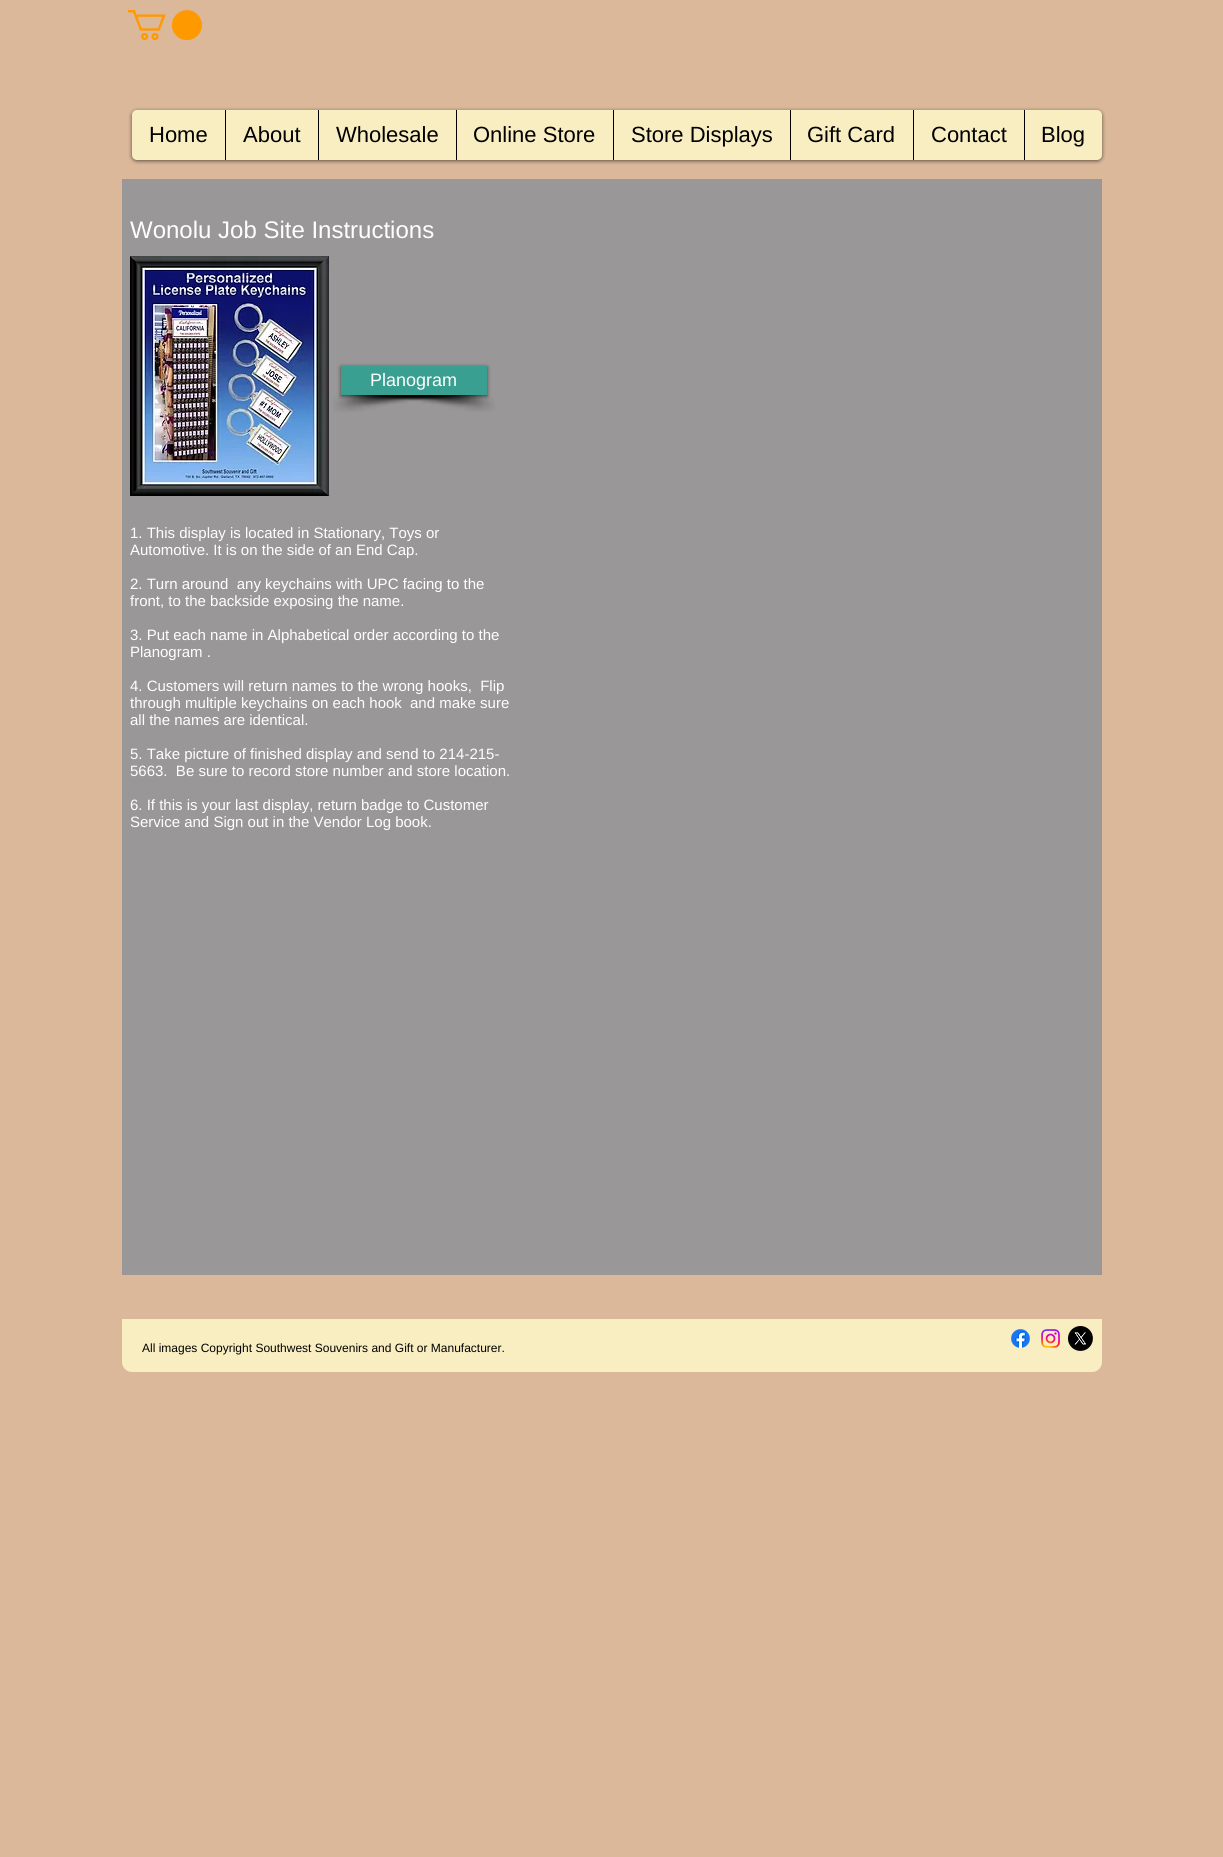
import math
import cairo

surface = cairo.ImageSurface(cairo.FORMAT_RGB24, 1223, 1857)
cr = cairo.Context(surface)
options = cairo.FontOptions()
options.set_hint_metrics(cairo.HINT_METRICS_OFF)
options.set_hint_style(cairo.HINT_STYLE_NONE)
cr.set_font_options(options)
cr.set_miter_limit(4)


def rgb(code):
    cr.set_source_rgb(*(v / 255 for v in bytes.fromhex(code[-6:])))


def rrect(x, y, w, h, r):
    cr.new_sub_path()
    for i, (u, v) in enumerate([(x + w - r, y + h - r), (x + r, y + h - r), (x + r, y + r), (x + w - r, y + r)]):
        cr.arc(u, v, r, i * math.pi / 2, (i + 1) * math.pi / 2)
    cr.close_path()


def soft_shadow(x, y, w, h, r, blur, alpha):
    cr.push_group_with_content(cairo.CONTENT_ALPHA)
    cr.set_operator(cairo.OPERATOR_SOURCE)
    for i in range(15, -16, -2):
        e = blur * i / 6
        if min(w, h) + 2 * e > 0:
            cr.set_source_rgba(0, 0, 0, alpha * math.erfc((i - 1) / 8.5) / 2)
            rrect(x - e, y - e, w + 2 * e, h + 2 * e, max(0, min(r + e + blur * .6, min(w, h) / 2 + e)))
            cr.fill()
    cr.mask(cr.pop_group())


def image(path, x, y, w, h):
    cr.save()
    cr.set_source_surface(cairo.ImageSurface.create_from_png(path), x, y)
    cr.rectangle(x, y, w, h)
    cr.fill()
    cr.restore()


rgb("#dbb89a")
cr.paint()
image("img/1.png", 128, 10, 74, 31)
rgb("#000000")
soft_shadow(132, 111, 970, 50, 5, 2, 0.6)
rgb("#f9eec2")
rrect(132, 110, 970, 50, 5)
cr.fill()
for x, y, w, h, color in [
    (225, 110, 1, 50, "#000000"),
    (318, 110, 1, 50, "#000000"),
    (456, 110, 1, 50, "#000000"),
    (613, 110, 1, 50, "#000000"),
    (790, 110, 1, 50, "#000000"),
    (913, 110, 1, 50, "#000000"),
    (1024, 110, 1, 50, "#000000"),
    (122, 179, 980, 1096, "#999797"),
]:
    rgb(color)
    cr.rectangle(x, y, w, h)
    cr.fill()
image("img/2.png", 130, 256, 199, 240)
image("img/3.png", 333, 395, 148, 17)
image("img/4.png", 350, 395, 145, 17)
rgb("#000000")
soft_shadow(341, 367, 146, 29, 0, 2, 0.6)
rgb("#389f91")
cr.rectangle(341, 366, 146, 29)
cr.fill()
rgb("#f9eec2")
cr.new_path()
cr.move_to(122, 1319)
cr.line_to(1102, 1319)
cr.line_to(1102, 1362)
cr.curve_to(1102, 1367.5, 1097.5, 1372, 1092, 1372)
cr.line_to(132, 1372)
cr.curve_to(126.5, 1372, 122, 1367.5, 122, 1362)
cr.close_path()
cr.fill()
image("img/5.png", 1011, 1329, 19, 19)
image("img/6.png", 1041, 1329, 19, 19)
image("img/7.png", 1068, 1326, 25, 25)
cr.select_font_face("Liberation Sans")
cr.set_font_size(22)
rgb("#000000")
for x, y, s in [
    (149, 142, "Home"),
    (243, 142, "About"),
    (336, 142, "Wholesale"),
    (473, 142, "Online Store"),
    (631, 142, "Store Displays"),
    (807, 142, "Gift Card"),
    (931, 142, "Contact"),
    (1041, 142, "Blog"),
]:
    cr.move_to(x, y)
    cr.show_text(s)
cr.set_font_size(24)
rgb("#ffffff")
cr.move_to(130, 238)
cr.show_text("Wonolu Job Site Instructions")
cr.set_font_size(15)
for x, y, s in [
    (130, 538, "1. This display is located in Stationary, Toys or"),
    (130, 555, "Automotive. It is on the side of an End Cap."),
    (130, 589, "2. Turn around  any keychains with UPC facing to the"),
    (130, 606, "front, to the backside exposing the name."),
    (130, 640, "3. Put each name in Alphabetical order according to the"),
    (130, 657, "Planogram ."),
    (130, 691, "4. Customers will return names to the wrong hooks,  Flip"),
    (130, 708, "through multiple keychains on each hook"),
    (410, 708, "and make sure"),
    (130, 725, "all the names are identical."),
    (130, 759, "5. Take picture of finished display and send to 214-215-"),
    (130, 776, "5663.  Be sure to record store number and store location."),
    (130, 810, "6. If this is your last display, return badge to Customer"),
    (130, 827, "Service and Sign out in the Vendor Log book."),
]:
    cr.move_to(x, y)
    cr.show_text(s)
cr.set_font_size(18)
cr.move_to(370, 386)
cr.show_text("Planogram")
cr.set_font_size(12)
rgb("#000000")
cr.move_to(142, 1352)
cr.show_text("All images Copyright Southwest Souvenirs and Gift or Manufacturer.")
surface.write_to_png("page.png")
